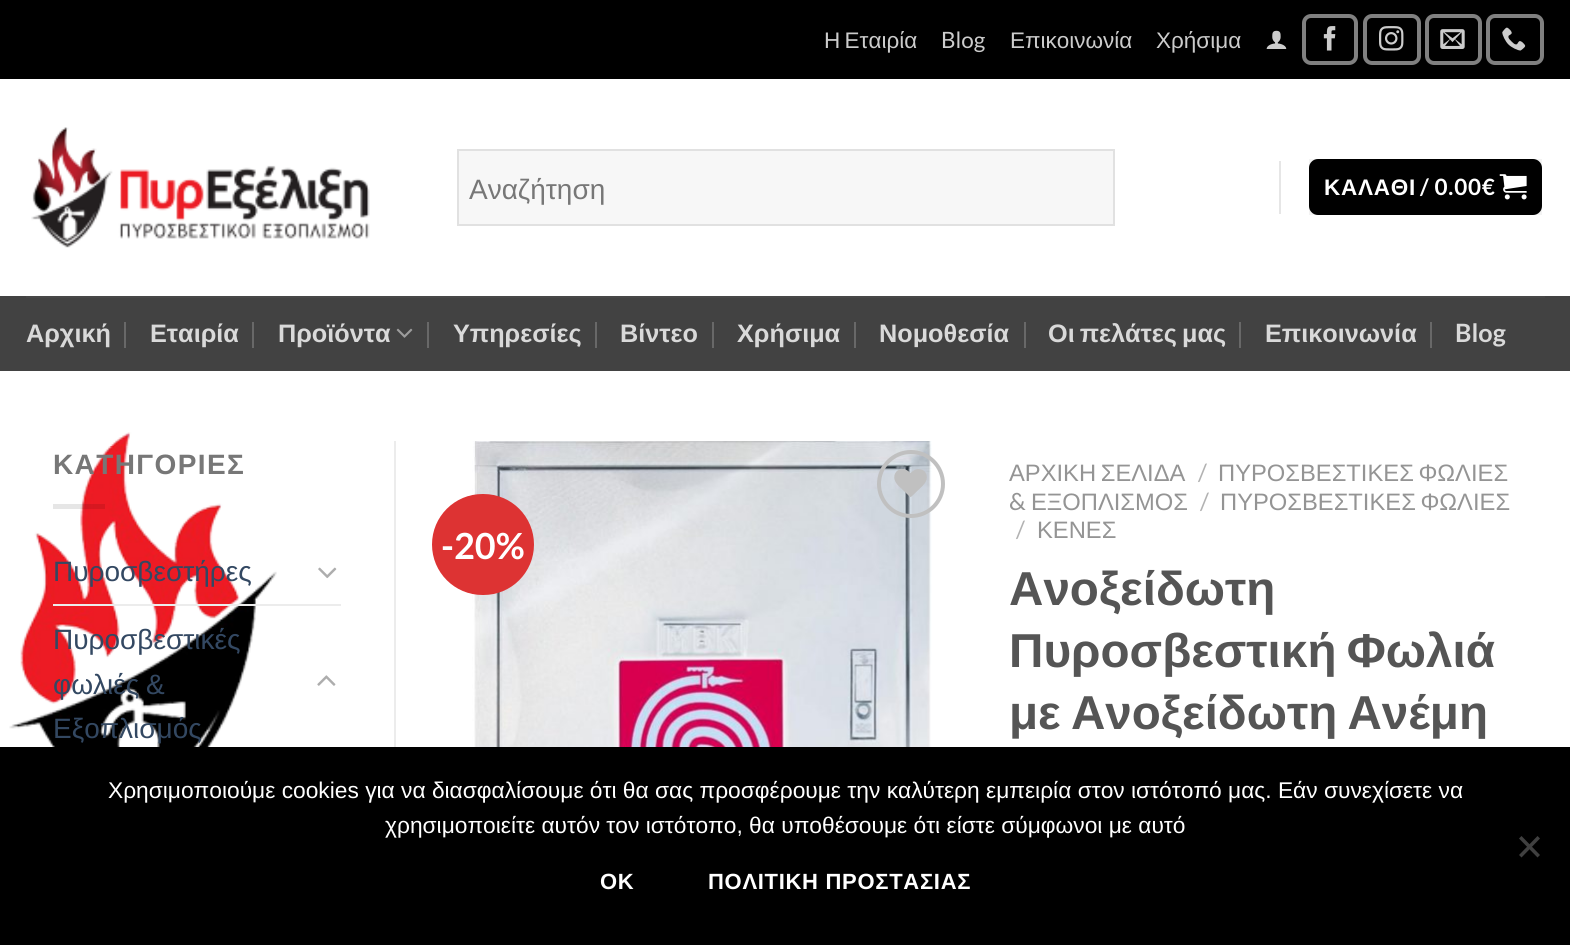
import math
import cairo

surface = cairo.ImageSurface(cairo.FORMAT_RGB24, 1570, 945)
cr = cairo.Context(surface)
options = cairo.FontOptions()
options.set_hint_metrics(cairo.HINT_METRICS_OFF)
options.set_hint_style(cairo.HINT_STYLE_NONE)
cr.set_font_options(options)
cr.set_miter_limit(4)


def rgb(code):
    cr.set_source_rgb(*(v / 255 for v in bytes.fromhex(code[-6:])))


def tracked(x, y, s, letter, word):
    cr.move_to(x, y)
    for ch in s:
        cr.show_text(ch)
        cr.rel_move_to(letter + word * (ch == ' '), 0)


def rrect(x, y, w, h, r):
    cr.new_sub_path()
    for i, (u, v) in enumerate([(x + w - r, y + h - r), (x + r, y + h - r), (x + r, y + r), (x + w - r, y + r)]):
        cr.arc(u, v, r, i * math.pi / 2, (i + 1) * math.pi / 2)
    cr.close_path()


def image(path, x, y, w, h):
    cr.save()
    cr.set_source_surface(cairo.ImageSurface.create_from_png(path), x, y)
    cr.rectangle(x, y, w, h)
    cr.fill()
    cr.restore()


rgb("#ffffff")
cr.paint()
rgb("#000000")
cr.rectangle(0, 0, 1570, 79)
cr.fill()
image("img/1.png", 1266, 30, 21, 19)
rrect(1304, 16, 52, 47, 7)
rgb("#808080")
cr.set_line_width(4)
cr.stroke()
image("img/2.png", 1323, 26, 13, 25)
rrect(1365, 16, 54, 47, 7)
cr.stroke()
image("img/3.png", 1379, 26, 25, 25)
rrect(1427, 16, 53, 47, 7)
cr.stroke()
image("img/4.png", 1440, 29, 25, 20)
rrect(1488, 16, 54, 47, 7)
cr.stroke()
image("img/5.png", 1502, 27, 24, 24)
image("img/6.png", 31, 127, 339, 121)
rgb("#f7f7f7")
cr.rectangle(458, 150, 656, 75)
cr.fill_preserve()
rgb("#e1e1e1")
cr.set_line_width(2)
cr.stroke()
rgb("#e6e6e6")
cr.rectangle(1279, 161, 2, 53)
cr.fill()
rgb("#000000")
rrect(1309, 159, 233, 56, 9)
cr.fill()
cr.rectangle(1310, 160, 231, 54)
cr.set_source_rgba(0, 0, 0, 0.05)
cr.stroke()
image("img/7.png", 1499, 174, 28, 26)
for x, y, w, h, color in [
    (0, 296, 1570, 75, "#424242"),
    (26, 296, 1519, 2, "#474747"),
    (124, 322, 2, 26, "#686868"),
    (252, 322, 2, 26, "#686868"),
]:
    rgb(color)
    cr.rectangle(x, y, w, h)
    cr.fill()
image("img/8.png", 396, 328, 17, 10)
for x, y, w, h, color in [
    (427, 322, 2, 26, "#686868"),
    (595, 322, 2, 26, "#686868"),
    (712, 322, 2, 26, "#686868"),
    (854, 322, 2, 26, "#686868"),
    (1024, 322, 2, 26, "#686868"),
    (1239, 322, 2, 26, "#686868"),
    (1430, 322, 2, 26, "#686868"),
]:
    rgb(color)
    cr.rectangle(x, y, w, h)
    cr.fill()
image("img/9.png", 9, 432, 268, 315)
cr.set_source_rgba(0, 0, 0, 0.1)
cr.rectangle(53, 504, 52, 5)
cr.fill()
image("img/10.png", 318, 567, 19, 12)
rgb("#ececec")
cr.rectangle(53, 604, 288, 2)
cr.fill()
image("img/11.png", 317, 675, 19, 11)
cr.rectangle(394, 441, 2, 306)
cr.fill()
image("img/12.png", 472, 441, 460, 306)
cr.arc(911, 484, 32, 0, 2 * math.pi)
rgb("#c0c0c0")
cr.set_line_width(4)
cr.stroke()
image("img/13.png", 894, 469, 33, 28)
rgb("#dd3333")
rrect(432, 494, 102, 101, 50.5)
cr.fill()
rgb("#000000")
cr.rectangle(0, 747, 1570, 198)
cr.fill()
rgb("#404040")
cr.new_path()
cr.move_to(1537.5, 836)
cr.line_to(1540, 838.5)
cr.line_to(1521.5, 857.5)
cr.line_to(1519, 855)
cr.close_path()
cr.fill()
cr.new_path()
cr.move_to(1519, 838.5)
cr.line_to(1521.5, 836)
cr.line_to(1540, 855)
cr.line_to(1537.5, 857.5)
cr.close_path()
cr.fill()
cr.select_font_face("Liberation Sans")
cr.set_font_size(22.5)
rgb("#cccccc")
tracked(824, 48, "Η Εταιρία", 0, -2)
cr.select_font_face("Lato")
cr.move_to(941, 48)
cr.show_text("Blog")
cr.select_font_face("Liberation Sans")
cr.move_to(1010, 48)
cr.show_text("Επικοινωνία")
cr.move_to(1156, 48)
cr.show_text("Χρήσιμα")
cr.set_font_size(28)
rgb("#777777")
cr.move_to(469, 199)
cr.show_text("Αναζήτηση")
cr.select_font_face("Liberation Sans", cairo.FONT_SLANT_NORMAL, cairo.FONT_WEIGHT_BOLD)
cr.set_font_size(22.5)
rgb("#ffffff")
tracked(1324, 195, "ΚΑΛΑΘΙ", 0.75, 0)
cr.select_font_face("Lato", cairo.FONT_SLANT_NORMAL, cairo.FONT_WEIGHT_BOLD)
tracked(1420, 195, "/ 0.00€", 0.75, 0)
cr.select_font_face("Liberation Sans", cairo.FONT_SLANT_NORMAL, cairo.FONT_WEIGHT_BOLD)
cr.set_font_size(25.25)
rgb("#d9d9d9")
for x, y, s in [
    (26, 342, "Αρχική"),
    (150, 342, "Εταιρία"),
    (278, 342, "Προϊόντα"),
    (453, 342, "Υπηρεσίες"),
    (620, 342, "Βίντεο"),
    (737, 342, "Χρήσιμα"),
    (879, 342, "Νομοθεσία"),
]:
    cr.move_to(x, y)
    cr.show_text(s)
tracked(1048, 342, "Οι πελάτες μας", 0, -2)
cr.move_to(1265, 342)
cr.show_text("Επικοινωνία")
cr.select_font_face("Lato", cairo.FONT_SLANT_NORMAL, cairo.FONT_WEIGHT_BOLD)
cr.move_to(1455, 342)
cr.show_text("Blog")
cr.select_font_face("Liberation Sans", cairo.FONT_SLANT_NORMAL, cairo.FONT_WEIGHT_BOLD)
cr.set_font_size(28)
rgb("#777777")
tracked(53, 474, "ΚΑΤΗΓΟΡΙΕΣ", 1.4, 0)
cr.select_font_face("Liberation Sans")
rgb("#334862")
cr.move_to(53, 581)
cr.show_text("Πυροσβεστήρες")
cr.move_to(53, 649)
cr.show_text("Πυροσβεστικές")
tracked(53, 694, "φωλιές &", 0, -1)
cr.move_to(53, 738)
cr.show_text("Εξοπλισμός")
cr.select_font_face("Lato", cairo.FONT_SLANT_NORMAL, cairo.FONT_WEIGHT_BOLD)
cr.set_font_size(36)
rgb("#ffffff")
cr.move_to(441, 559)
cr.show_text("-20%")
cr.select_font_face("Liberation Sans")
cr.set_font_size(23.75)
rgb("#949494")
tracked(1009, 481, "ΑΡΧΙΚΗ ΣΕΛΙΔΑ", 0, -2)
cr.select_font_face("Lato")
rgb("#b2b2b2")
cr.move_to(1198, 481)
cr.show_text("/")
cr.select_font_face("Liberation Sans")
rgb("#949494")
tracked(1218, 481, "ΠΥΡΟΣΒΕΣΤΙΚΕΣ ΦΩΛΙΕΣ", 0, -2)
cr.select_font_face("Lato")
cr.move_to(1009, 510)
cr.show_text("&")
cr.select_font_face("Liberation Sans")
cr.move_to(1031, 510)
cr.show_text("ΕΞΟΠΛΙΣΜΟΣ")
cr.select_font_face("Lato")
rgb("#b2b2b2")
cr.move_to(1200, 510)
cr.show_text("/")
cr.select_font_face("Liberation Sans")
rgb("#949494")
tracked(1220, 510, "ΠΥΡΟΣΒΕΣΤΙΚΕΣ ΦΩΛΙΕΣ", 0, -2)
cr.select_font_face("Lato")
rgb("#b2b2b2")
cr.move_to(1016, 538)
cr.show_text("/")
cr.select_font_face("Liberation Sans")
rgb("#949494")
cr.move_to(1037, 538)
cr.show_text("ΚΕΝΕΣ")
cr.select_font_face("Liberation Sans", cairo.FONT_SLANT_NORMAL, cairo.FONT_WEIGHT_BOLD)
cr.set_font_size(47.6)
rgb("#555555")
cr.move_to(1009, 605)
cr.show_text("Ανοξείδωτη")
tracked(1009, 667, "Πυροσβεστική Φωλιά", 0, -3)
tracked(1009, 729, "με Ανοξείδωτη Ανέμη", 0, -3)
cr.select_font_face("Liberation Sans")
cr.set_font_size(22.75)
rgb("#ffffff")
cr.move_to(108, 798)
cr.show_text("Χρησιμοποιούμε cookies για να διασφαλίσουμε ότι θα σας προσφέρουμε την καλύτερη εμπειρία στον ιστότοπό μας. Εάν συνεχίσετε να")
cr.move_to(385, 833)
cr.show_text("χρησιμοποιείτε αυτόν τον ιστότοπο, θα υποθέσουμε ότι είστε σύμφωνοι με αυτό")
cr.select_font_face("Liberation Sans", cairo.FONT_SLANT_NORMAL, cairo.FONT_WEIGHT_BOLD)
cr.set_font_size(22)
tracked(600, 889, "OK", 0.7, 0)
tracked(708, 889, "ΠΟΛΙΤΙΚΗ ΠΡΟΣΤΑΣΙΑΣ", 0.7, 0)
surface.write_to_png("page.png")
